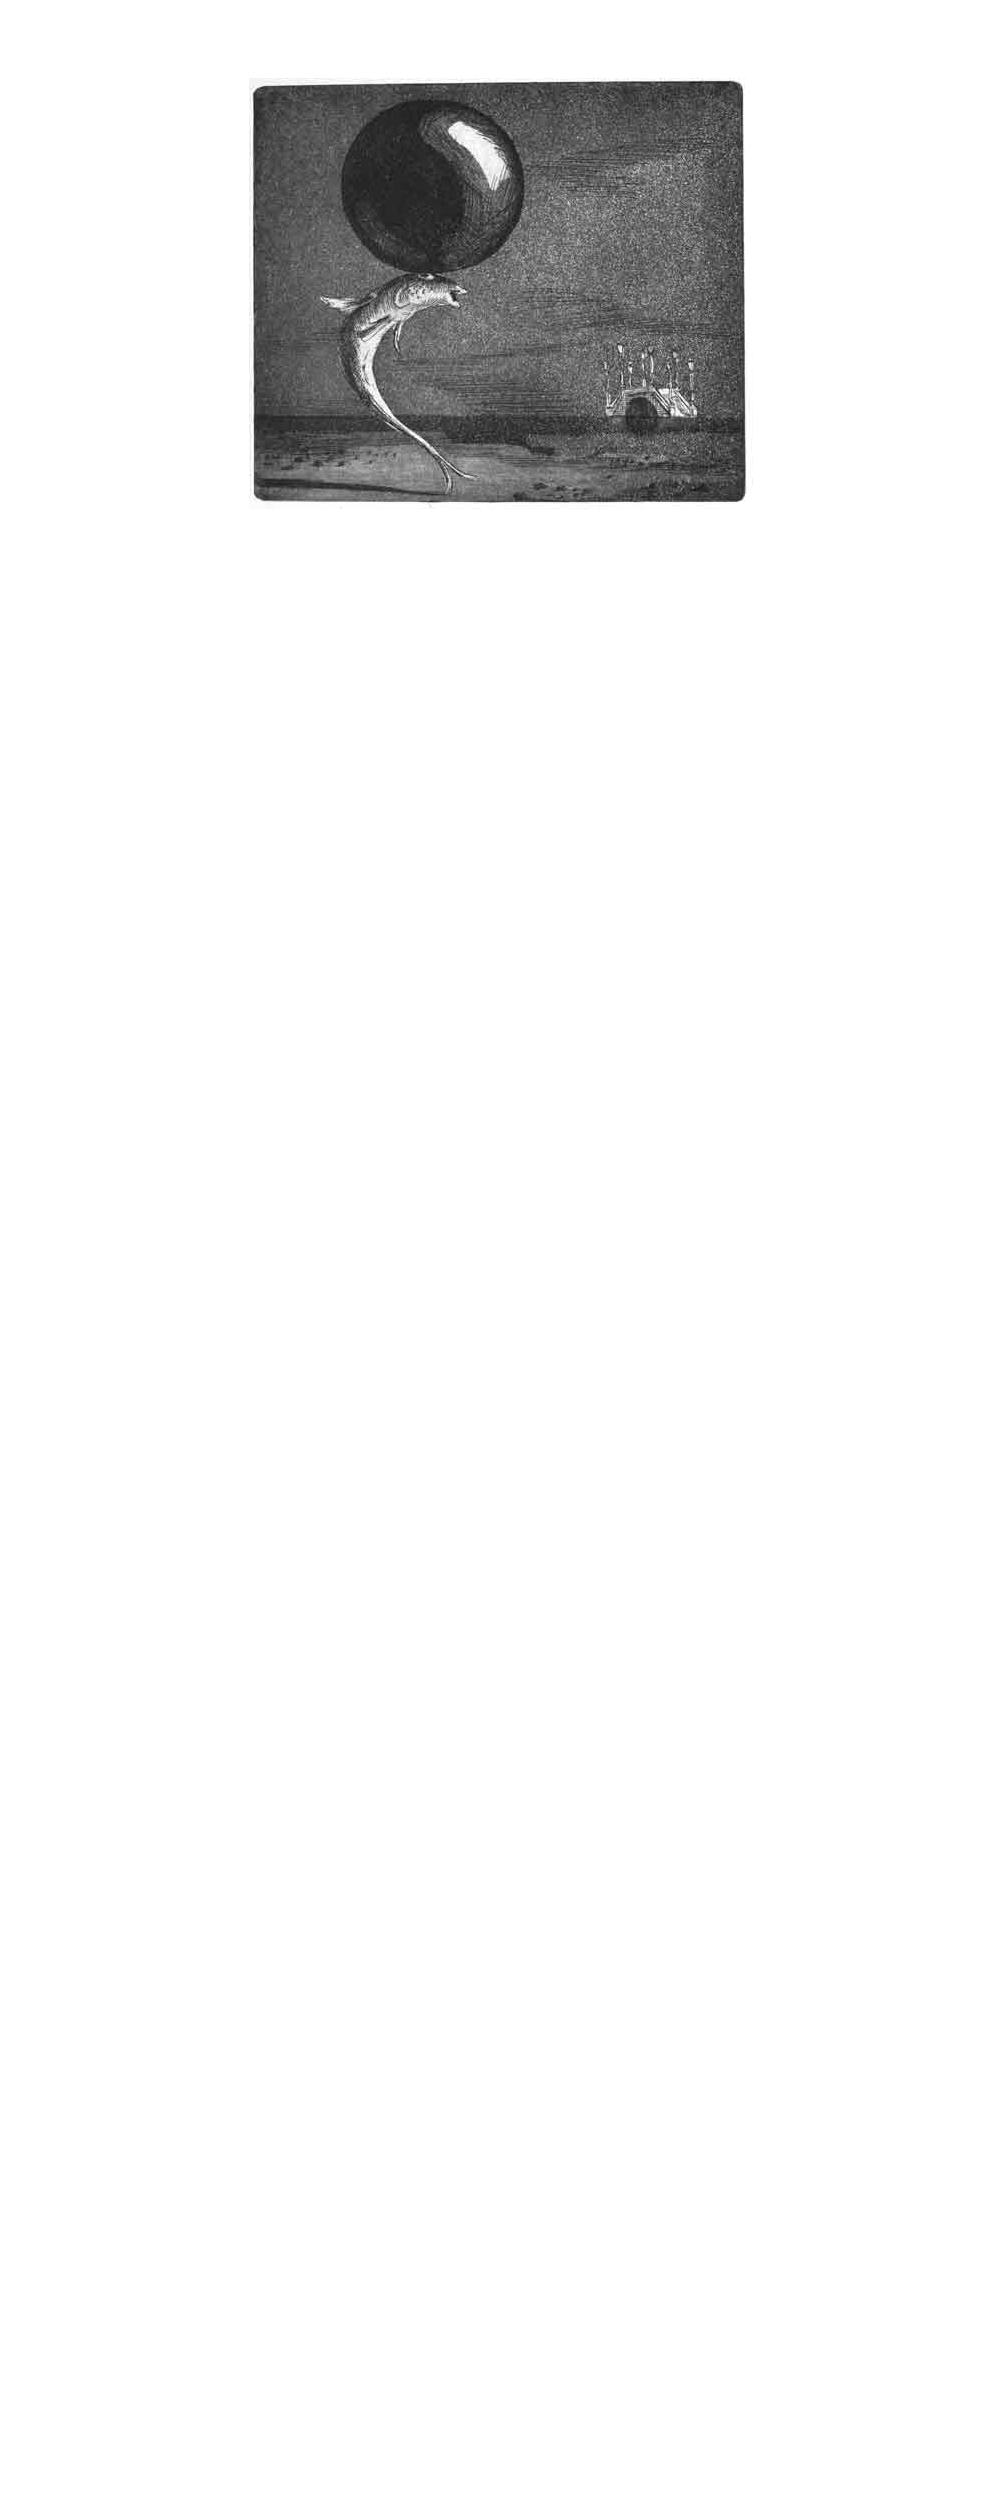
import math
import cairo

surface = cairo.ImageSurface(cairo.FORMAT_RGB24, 1002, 2512)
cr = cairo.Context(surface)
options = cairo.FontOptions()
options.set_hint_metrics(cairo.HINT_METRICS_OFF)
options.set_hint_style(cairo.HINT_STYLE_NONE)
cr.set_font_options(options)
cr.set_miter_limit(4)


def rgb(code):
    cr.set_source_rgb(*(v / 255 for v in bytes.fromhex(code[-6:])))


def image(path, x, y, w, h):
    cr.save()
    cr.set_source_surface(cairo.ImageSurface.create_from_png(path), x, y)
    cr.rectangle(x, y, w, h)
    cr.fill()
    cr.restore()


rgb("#ffffff")
cr.paint()
image("img/1.png", 249, 78, 504, 431)
surface.write_to_png("page.png")
